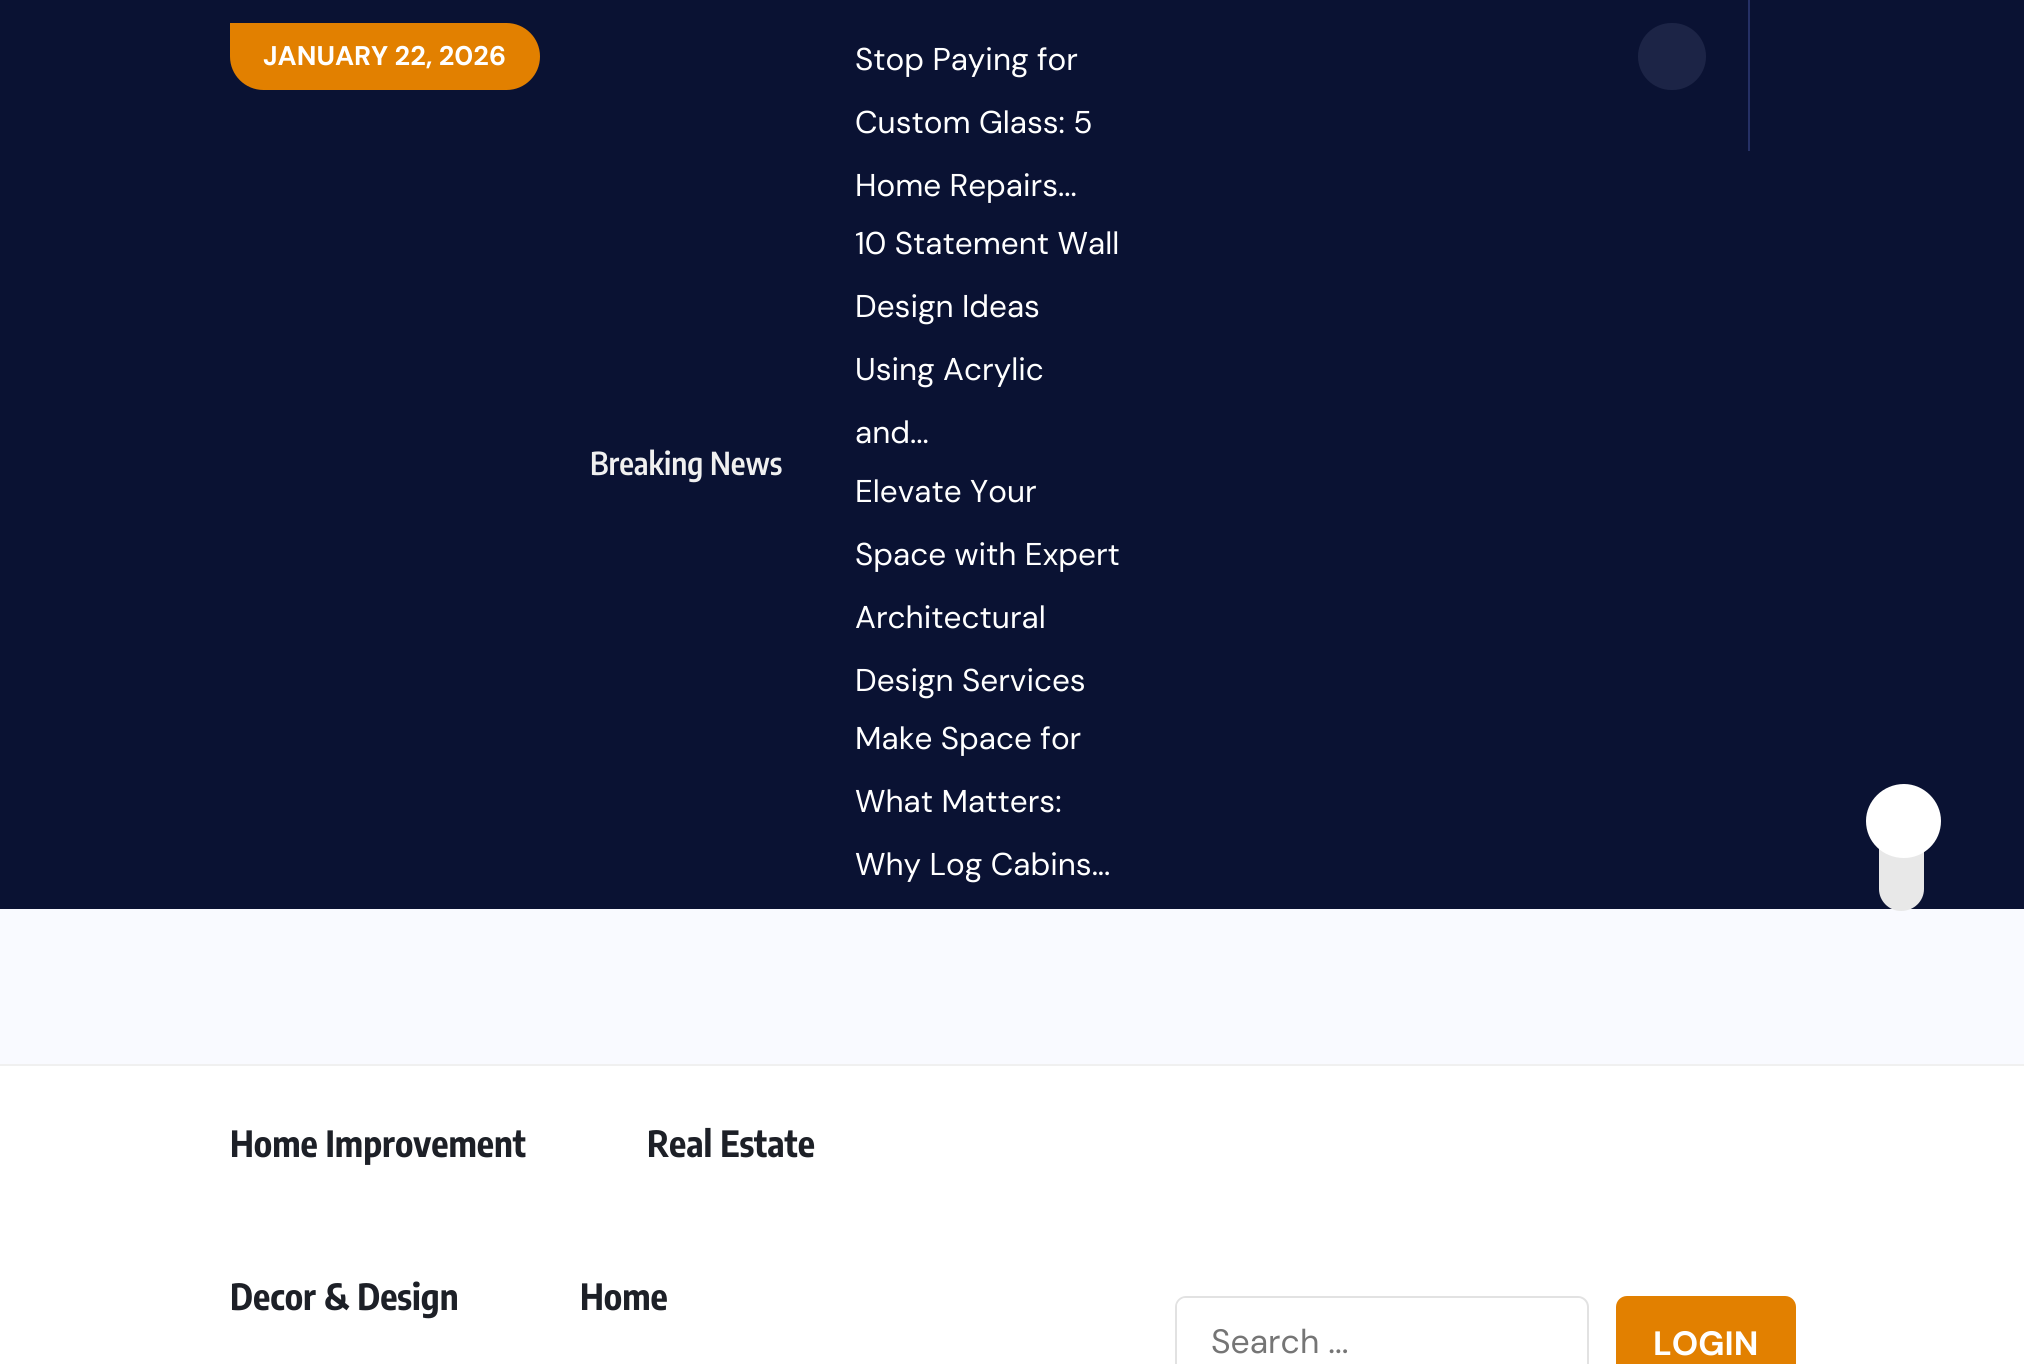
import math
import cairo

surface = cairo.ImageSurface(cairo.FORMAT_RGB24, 2024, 1364)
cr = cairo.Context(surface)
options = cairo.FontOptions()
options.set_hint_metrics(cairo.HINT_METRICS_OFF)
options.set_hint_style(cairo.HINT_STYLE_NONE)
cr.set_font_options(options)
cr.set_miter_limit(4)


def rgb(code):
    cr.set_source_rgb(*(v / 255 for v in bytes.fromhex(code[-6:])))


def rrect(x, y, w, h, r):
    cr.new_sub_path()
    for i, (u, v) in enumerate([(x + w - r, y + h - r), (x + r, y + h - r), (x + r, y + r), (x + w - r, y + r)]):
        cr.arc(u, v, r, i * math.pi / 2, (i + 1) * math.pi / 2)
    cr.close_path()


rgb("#f9faff")
cr.paint()
rgb("#0a1233")
cr.rectangle(0, 0, 2024, 909)
cr.fill()
rgb("#e28000")
cr.new_path()
cr.move_to(230, 23)
cr.line_to(506.5, 23)
cr.curve_to(525, 23, 540, 38, 540, 56.5)
cr.curve_to(540, 75, 525, 90, 506.5, 90)
cr.line_to(263.5, 90)
cr.curve_to(245, 90, 230, 75, 230, 56.5)
cr.close_path()
cr.fill()
rgb("#1c2446")
rrect(1638, 23, 68, 67, 33.5)
cr.fill()
for x, y, w, h, color in [
    (1748, 0, 2, 151, "#253065"),
    (0, 1066, 2024, 298, "#ffffff"),
    (0, 1064, 2024, 2, "#f0f0f0"),
]:
    rgb(color)
    cr.rectangle(x, y, w, h)
    cr.fill()
rrect(1176, 1297, 412, 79, 10)
rgb("#e2e2e2")
cr.stroke()
rgb("#ffffff")
rrect(1177, 1298, 409, 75, 9)
cr.fill()
rgb("#e28000")
rrect(1617, 1297, 178, 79, 10)
cr.fill_preserve()
cr.stroke()
rgb("#e8e8e8")
cr.new_path()
cr.move_to(1924, 810)
cr.line_to(1924, 889)
cr.curve_to(1924, 901, 1914, 911, 1901, 911)
cr.curve_to(1889, 911, 1879, 901, 1879, 889)
cr.line_to(1879, 810)
cr.curve_to(1879, 798, 1889, 788, 1901, 788)
cr.curve_to(1914, 788, 1924, 798, 1924, 810)
cr.close_path()
cr.fill()
rgb("#ffffff")
cr.new_path()
cr.move_to(1941, 821)
cr.curve_to(1941, 842, 1924, 858, 1904, 858)
cr.curve_to(1883, 858, 1866, 842, 1866, 821)
cr.curve_to(1866, 801, 1883, 784, 1904, 784)
cr.curve_to(1924, 784, 1941, 801, 1941, 821)
cr.close_path()
cr.fill()
cr.select_font_face("DM Sans", cairo.FONT_SLANT_NORMAL, cairo.FONT_WEIGHT_BOLD)
cr.set_font_size(27)
cr.move_to(263, 65)
cr.show_text("JANUARY 22, 2026")
cr.select_font_face("Encode Sans Condensed SemiBold")
cr.set_font_size(31.5)
rgb("#f0f0f0")
cr.move_to(590, 475)
cr.show_text("Breaking News")
cr.select_font_face("DM Sans")
rgb("#ffffff")
for x, y, s in [
    (855, 70, "Stop Paying for"),
    (855, 133, "Custom Glass: 5"),
    (855, 196, "Home Repairs..."),
    (855, 254, "10 Statement Wall"),
    (855, 317, "Design Ideas"),
    (855, 380, "Using Acrylic"),
    (855, 443, "and..."),
    (855, 502, "Elevate Your"),
    (855, 565, "Space with Expert"),
    (855, 628, "Architectural"),
    (855, 691, "Design Services"),
    (855, 749, "Make Space for"),
    (855, 812, "What Matters:"),
    (855, 875, "Why Log Cabins..."),
]:
    cr.move_to(x, y)
    cr.show_text(s)
cr.select_font_face("Encode Sans Condensed", cairo.FONT_SLANT_NORMAL, cairo.FONT_WEIGHT_BOLD)
cr.set_font_size(36)
rgb("#1d2027")
for x, y, s in [
    (230, 1157, "Home Improvement"),
    (647, 1157, "Real Estate"),
    (230, 1310, "Decor & Design"),
    (580, 1310, "Home"),
]:
    cr.move_to(x, y)
    cr.show_text(s)
cr.select_font_face("DM Sans")
cr.set_font_size(33.75)
rgb("#757575")
cr.move_to(1211, 1353)
cr.show_text("Search ...")
cr.select_font_face("DM Sans", cairo.FONT_SLANT_NORMAL, cairo.FONT_WEIGHT_BOLD)
rgb("#ffffff")
cr.move_to(1653, 1355)
cr.show_text("LOGIN")
surface.write_to_png("page.png")
